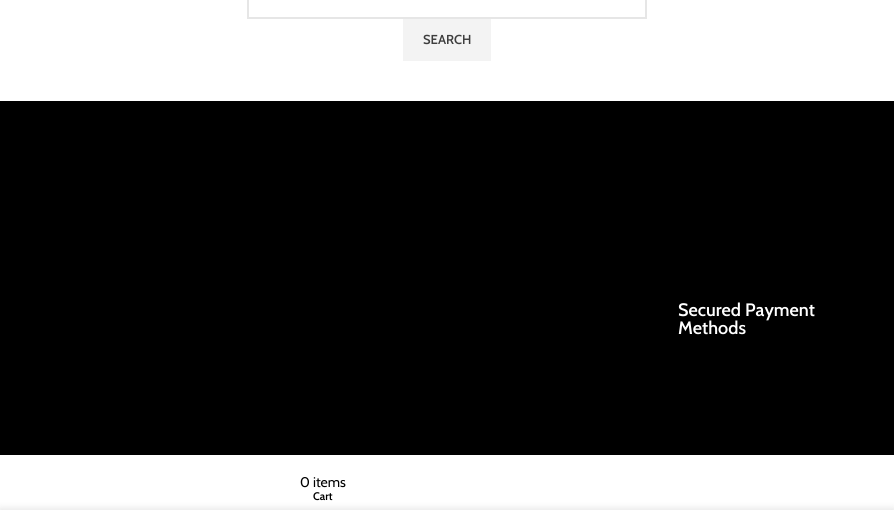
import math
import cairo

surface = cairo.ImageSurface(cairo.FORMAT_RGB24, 894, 510)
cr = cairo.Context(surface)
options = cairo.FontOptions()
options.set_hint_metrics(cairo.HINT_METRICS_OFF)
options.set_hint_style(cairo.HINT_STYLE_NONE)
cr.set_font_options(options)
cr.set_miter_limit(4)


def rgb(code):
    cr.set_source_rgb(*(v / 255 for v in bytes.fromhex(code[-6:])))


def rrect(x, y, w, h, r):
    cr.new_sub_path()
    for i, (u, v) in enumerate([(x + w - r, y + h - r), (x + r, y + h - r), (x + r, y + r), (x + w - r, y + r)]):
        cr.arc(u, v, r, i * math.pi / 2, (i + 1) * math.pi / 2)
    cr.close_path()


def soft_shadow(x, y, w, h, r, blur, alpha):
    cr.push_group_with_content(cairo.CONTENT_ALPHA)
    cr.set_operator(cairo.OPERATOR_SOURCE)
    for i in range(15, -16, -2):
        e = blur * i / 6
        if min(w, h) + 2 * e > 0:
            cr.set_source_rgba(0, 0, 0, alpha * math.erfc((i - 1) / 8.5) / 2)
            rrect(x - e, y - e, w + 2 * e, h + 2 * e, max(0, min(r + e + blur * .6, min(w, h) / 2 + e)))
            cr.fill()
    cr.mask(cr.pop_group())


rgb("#ffffff")
cr.paint()
cr.rectangle(248, -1, 398, 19)
rgb("#e6e6e6")
cr.stroke()
rgb("#f3f3f3")
cr.rectangle(403, 19, 88, 42)
cr.fill()
rgb("#000000")
cr.rectangle(0, 101, 894, 354)
cr.fill()
rgb("#000000")
soft_shadow(0, 510, 894, 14, 0, 4.5, 0.14)
cr.select_font_face("Cabin SemiBold")
cr.set_font_size(13)
rgb("#3e3e3e")
cr.move_to(423, 44)
cr.show_text("SEARCH")
cr.set_font_size(18)
rgb("#ffffff")
cr.move_to(678, 316)
cr.show_text("Secured Payment")
cr.move_to(678, 334)
cr.show_text("Methods")
cr.select_font_face("Cabin")
cr.set_font_size(14)
rgb("#000000")
cr.move_to(300, 487)
cr.show_text("0 items")
cr.select_font_face("Cabin SemiBold")
cr.set_font_size(11)
cr.move_to(313, 500)
cr.show_text("Cart")
surface.write_to_png("page.png")
